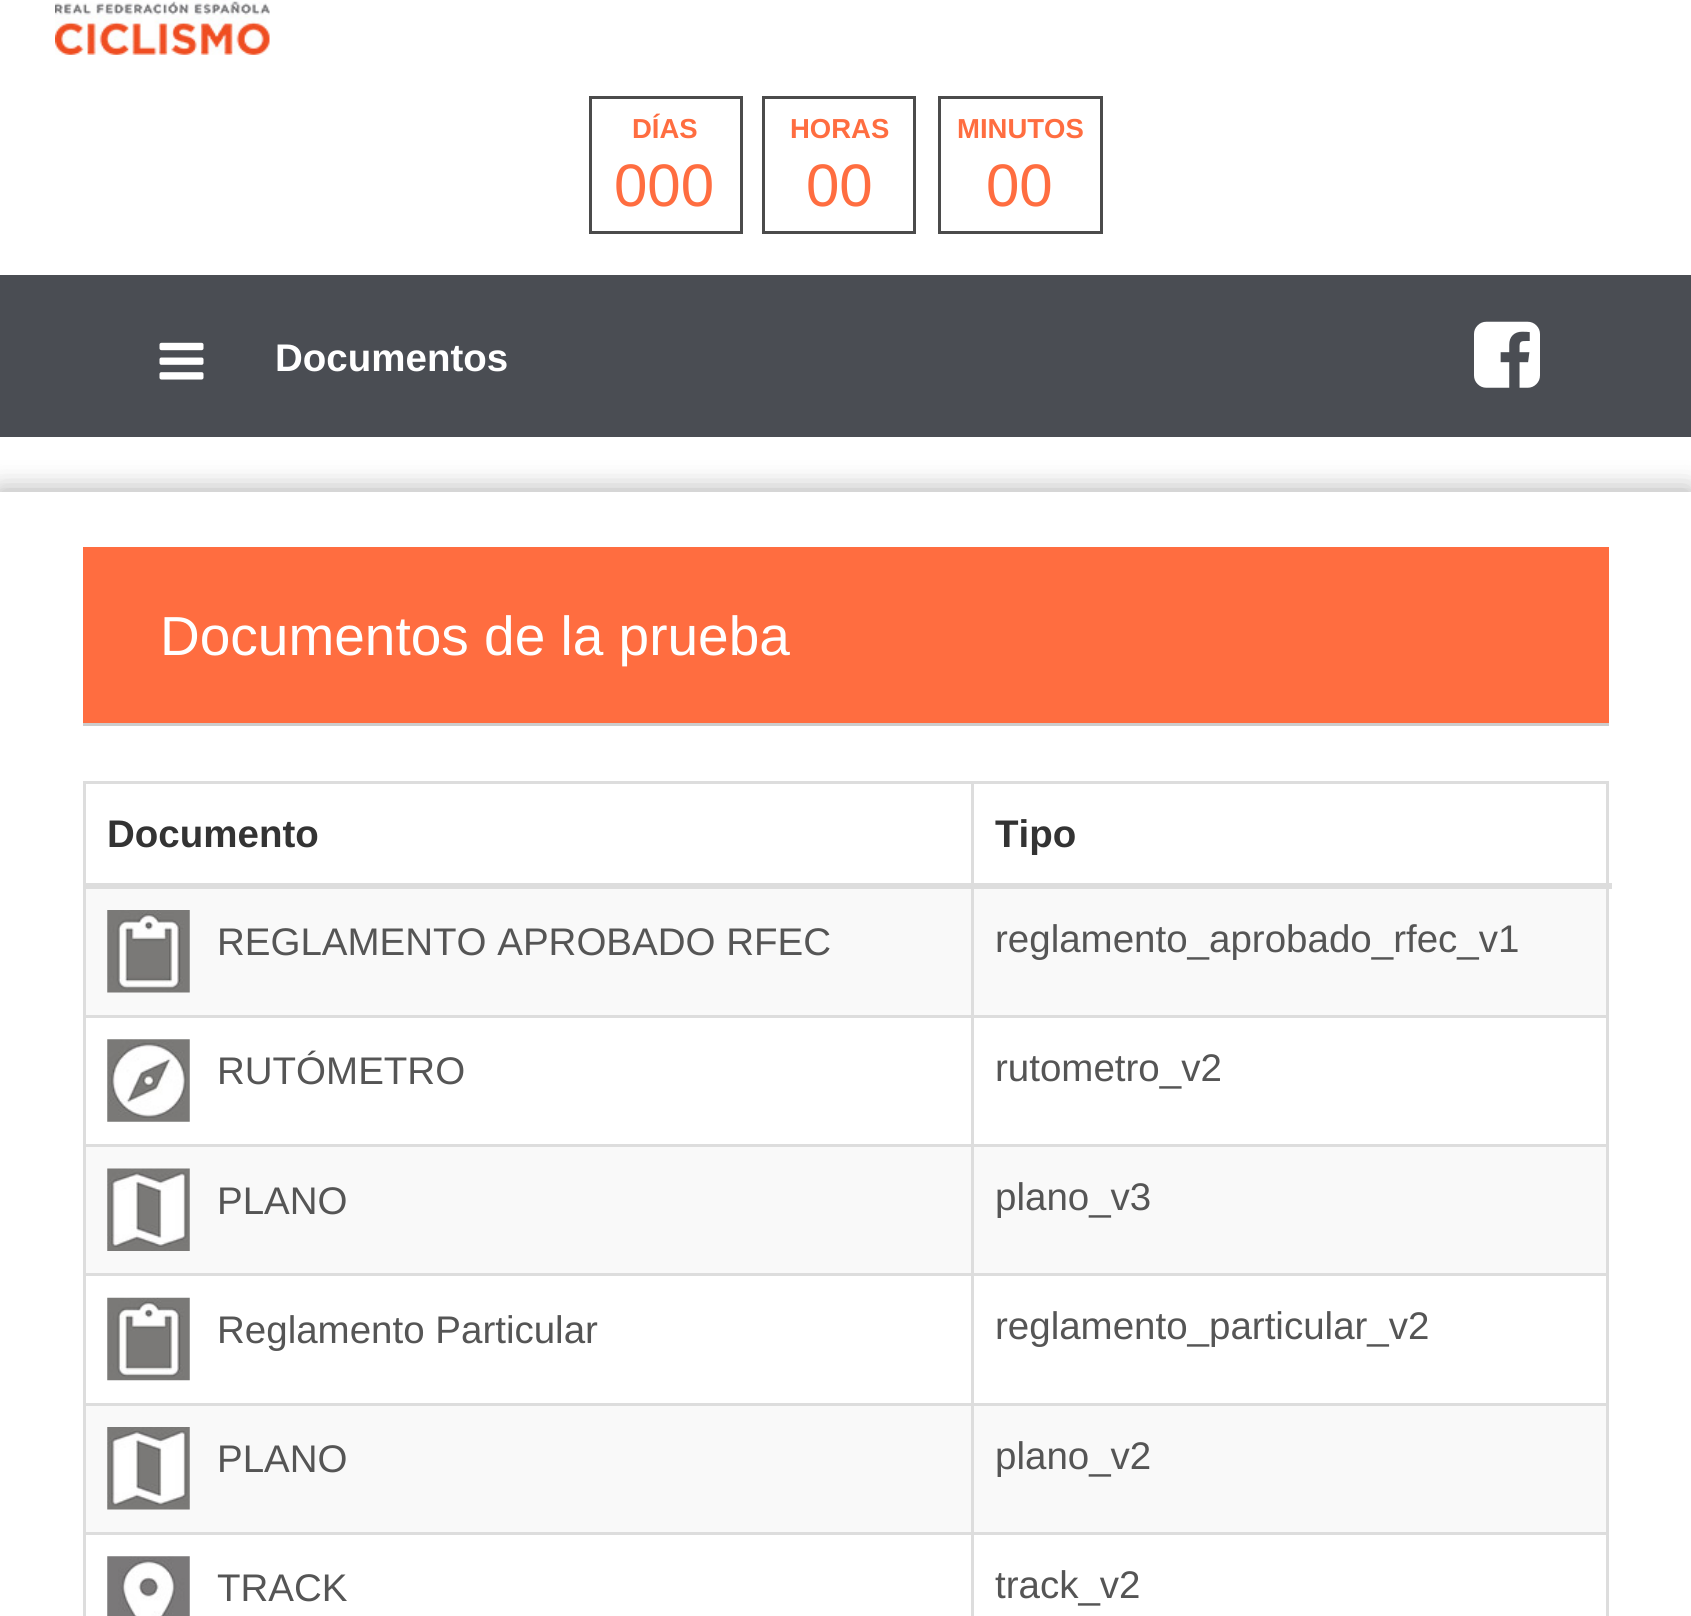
import math
import cairo

surface = cairo.ImageSurface(cairo.FORMAT_RGB24, 1691, 1616)
cr = cairo.Context(surface)
options = cairo.FontOptions()
options.set_hint_metrics(cairo.HINT_METRICS_OFF)
options.set_hint_style(cairo.HINT_STYLE_NONE)
cr.set_font_options(options)
cr.set_miter_limit(4)


def rgb(code):
    cr.set_source_rgb(*(v / 255 for v in bytes.fromhex(code[-6:])))


def rrect(x, y, w, h, r):
    cr.new_sub_path()
    for i, (u, v) in enumerate([(x + w - r, y + h - r), (x + r, y + h - r), (x + r, y + r), (x + w - r, y + r)]):
        cr.arc(u, v, r, i * math.pi / 2, (i + 1) * math.pi / 2)
    cr.close_path()


def soft_shadow(x, y, w, h, r, blur, alpha):
    cr.push_group_with_content(cairo.CONTENT_ALPHA)
    cr.set_operator(cairo.OPERATOR_SOURCE)
    for i in range(15, -16, -2):
        e = blur * i / 6
        if min(w, h) + 2 * e > 0:
            cr.set_source_rgba(0, 0, 0, alpha * math.erfc((i - 1) / 8.5) / 2)
            rrect(x - e, y - e, w + 2 * e, h + 2 * e, max(0, min(r + e + blur * .6, min(w, h) / 2 + e)))
            cr.fill()
    cr.mask(cr.pop_group())


def image(path, x, y, w, h):
    cr.save()
    cr.set_source_surface(cairo.ImageSurface.create_from_png(path), x, y)
    cr.rectangle(x, y, w, h)
    cr.fill()
    cr.restore()


rgb("#ffffff")
cr.paint()
image("img/1.png", 55, 0, 215, 55)
cr.rectangle(590.5, 97.5, 151, 135)
rgb("#4b4b4b")
cr.set_line_width(3)
cr.stroke()
cr.rectangle(763.5, 97.5, 151, 135)
cr.stroke()
cr.rectangle(939.5, 97.5, 162, 135)
cr.stroke()
rgb("#4a4d53")
cr.rectangle(0, 275, 1691, 162)
cr.fill()
image("img/2.png", 159, 342, 45, 38)
image("img/3.png", 1474, 321, 66, 67)
cr.save()
cr.set_fill_rule(cairo.FILL_RULE_EVEN_ODD)
cr.new_path()
cr.move_to(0, 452)
cr.line_to(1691, 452)
cr.line_to(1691, 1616)
cr.line_to(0, 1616)
cr.close_path()
cr.move_to(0, 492)
cr.line_to(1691, 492)
cr.line_to(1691, 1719)
cr.line_to(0, 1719)
cr.close_path()
cr.clip()
rgb("#000000")
soft_shadow(3, 495, 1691, 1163, 0, 14, 0.2)
cr.restore()
cr.save()
cr.set_fill_rule(cairo.FILL_RULE_EVEN_ODD)
cr.new_path()
cr.move_to(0, 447)
cr.line_to(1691, 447)
cr.line_to(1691, 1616)
cr.line_to(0, 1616)
cr.close_path()
cr.move_to(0, 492)
cr.line_to(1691, 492)
cr.line_to(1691, 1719)
cr.line_to(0, 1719)
cr.close_path()
cr.clip()
rgb("#000000")
soft_shadow(-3, 490, 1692, 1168, 0, 14, 0.2)
cr.restore()
for x, y, w, h, color in [
    (83, 547, 1526, 176, "#ff6d40"),
    (83, 723, 1526, 3, "#cccccc"),
    (83, 781, 1526, 3, "#dddddd"),
    (1606, 781, 3, 835, "#dddddd"),
    (83, 781, 3, 835, "#dddddd"),
    (86, 889, 1520, 126, "#f9f9f9"),
    (971, 1015, 638, 3, "#dddddd"),
    (971, 1144, 638, 3, "#dddddd"),
    (86, 1147, 1520, 126, "#f9f9f9"),
    (971, 1273, 638, 3, "#dddddd"),
    (971, 1403, 638, 3, "#dddddd"),
    (86, 1406, 1520, 126, "#f9f9f9"),
    (971, 1532, 638, 3, "#dddddd"),
    (971, 1532, 3, 84, "#dddddd"),
    (83, 1532, 891, 3, "#dddddd"),
    (971, 1403, 3, 132, "#dddddd"),
    (83, 1403, 891, 3, "#dddddd"),
    (971, 1273, 3, 132, "#dddddd"),
    (83, 1273, 891, 3, "#dddddd"),
    (971, 1144, 3, 132, "#dddddd"),
    (83, 1144, 891, 3, "#dddddd"),
    (971, 1015, 3, 132, "#dddddd"),
    (83, 1015, 891, 3, "#dddddd"),
    (971, 781, 3, 237, "#dddddd"),
    (83, 883, 1529, 6, "#dddddd"),
]:
    rgb(color)
    cr.rectangle(x, y, w, h)
    cr.fill()
image("img/4.png", 107, 910, 83, 83)
image("img/5.png", 107, 1039, 83, 83)
image("img/6.png", 107, 1168, 83, 83)
image("img/7.png", 107, 1297, 83, 84)
image("img/8.png", 107, 1427, 83, 83)
image("img/9.png", 107, 1556, 83, 60)
cr.select_font_face("Liberation Sans", cairo.FONT_SLANT_NORMAL, cairo.FONT_WEIGHT_BOLD)
cr.set_font_size(27.5)
rgb("#ff6d40")
cr.move_to(632, 138)
cr.show_text("DÍAS")
cr.select_font_face("Liberation Sans")
cr.set_font_size(60)
cr.move_to(614, 206)
cr.show_text("000")
cr.select_font_face("Liberation Sans", cairo.FONT_SLANT_NORMAL, cairo.FONT_WEIGHT_BOLD)
cr.set_font_size(27.5)
cr.move_to(790, 138)
cr.show_text("HORAS")
cr.select_font_face("Liberation Sans")
cr.set_font_size(60)
cr.move_to(806, 206)
cr.show_text("00")
cr.select_font_face("Liberation Sans", cairo.FONT_SLANT_NORMAL, cairo.FONT_WEIGHT_BOLD)
cr.set_font_size(27.5)
cr.move_to(957, 138)
cr.show_text("MINUTOS")
cr.select_font_face("Liberation Sans")
cr.set_font_size(60)
cr.move_to(986, 206)
cr.show_text("00")
cr.select_font_face("Liberation Sans", cairo.FONT_SLANT_NORMAL, cairo.FONT_WEIGHT_BOLD)
cr.set_font_size(38.5)
rgb("#ffffff")
cr.move_to(275, 371)
cr.show_text("Documentos")
cr.select_font_face("Liberation Sans")
cr.set_font_size(55)
cr.move_to(160, 655)
cr.show_text("Documentos de la prueba")
cr.select_font_face("Liberation Sans", cairo.FONT_SLANT_NORMAL, cairo.FONT_WEIGHT_BOLD)
cr.set_font_size(38.5)
rgb("#333333")
cr.move_to(107, 847)
cr.show_text("Documento")
cr.move_to(995, 847)
cr.show_text("Tipo")
cr.select_font_face("Liberation Sans")
rgb("#555555")
for x, y, s in [
    (217, 955, "REGLAMENTO APROBADO RFEC"),
    (995, 952, "reglamento_aprobado_rfec_v1"),
    (217, 1084, "RUTÓMETRO"),
    (995, 1081, "rutometro_v2"),
    (217, 1214, "PLANO"),
    (995, 1210, "plano_v3"),
    (217, 1343, "Reglamento Particular"),
    (995, 1339, "reglamento_particular_v2"),
    (217, 1472, "PLANO"),
    (995, 1469, "plano_v2"),
    (217, 1601, "TRACK"),
    (995, 1598, "track_v2"),
]:
    cr.move_to(x, y)
    cr.show_text(s)
surface.write_to_png("page.png")
